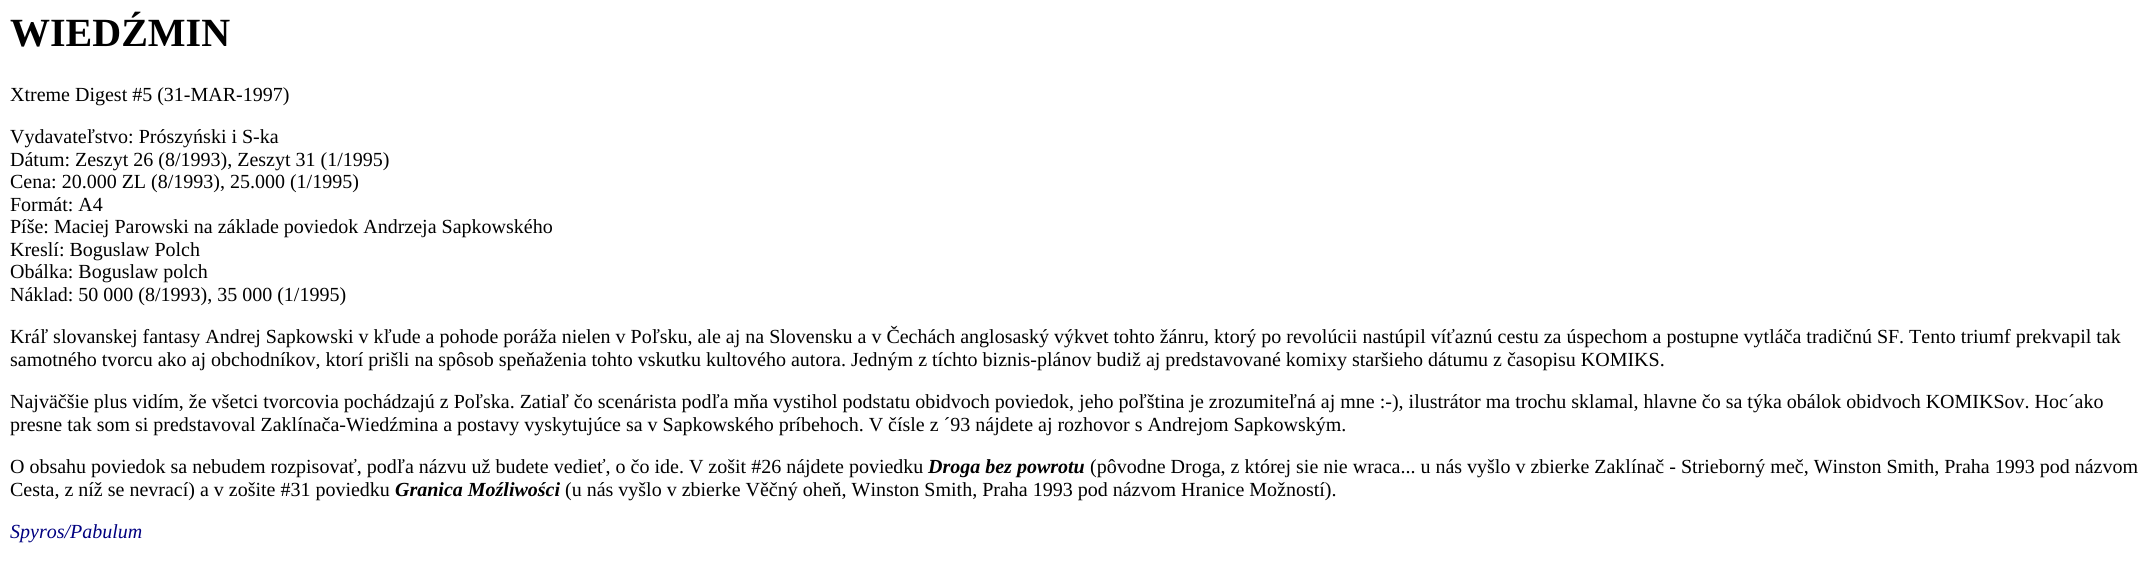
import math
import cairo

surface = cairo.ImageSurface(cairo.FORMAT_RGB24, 2150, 563)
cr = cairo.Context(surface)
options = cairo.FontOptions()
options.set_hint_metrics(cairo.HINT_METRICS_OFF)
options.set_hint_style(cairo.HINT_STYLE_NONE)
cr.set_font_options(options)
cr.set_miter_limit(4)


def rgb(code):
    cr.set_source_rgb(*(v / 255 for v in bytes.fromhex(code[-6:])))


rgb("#ffffff")
cr.paint()
cr.select_font_face("Liberation Serif", cairo.FONT_SLANT_NORMAL, cairo.FONT_WEIGHT_BOLD)
cr.set_font_size(40)
rgb("#000000")
cr.move_to(10, 46)
cr.show_text("WIEDŹMIN")
cr.select_font_face("Liberation Serif")
cr.set_font_size(20)
for x, y, s in [
    (10, 101, "Xtreme Digest #5 (31-MAR-1997)"),
    (10, 143, "Vydavateľstvo: Prószyński i S-ka"),
    (10, 166, "Dátum: Zeszyt 26 (8/1993), Zeszyt 31 (1/1995)"),
    (10, 188, "Cena: 20.000 ZL (8/1993), 25.000 (1/1995)"),
    (10, 211, "Formát: A4"),
    (10, 233, "Píše: Maciej Parowski na základe poviedok Andrzeja Sapkowského"),
    (10, 256, "Kreslí: Boguslaw Polch"),
    (10, 278, "Obálka: Boguslaw polch"),
    (10, 301, "Náklad: 50 000 (8/1993), 35 000 (1/1995)"),
    (10, 343, "Kráľ slovanskej fantasy Andrej Sapkowski v kľude a pohode poráža nielen v Poľsku, ale aj na Slovensku a v Čechách anglosaský výkvet tohto žánru, ktorý po revolúcii nastúpil víťaznú cestu za úspechom a postupne vytláča tradičnú SF. Tento triumf prekvapil tak"),
    (10, 366, "samotného tvorcu ako aj obchodníkov, ktorí prišli na spôsob speňaženia tohto vskutku kultového autora. Jedným z tíchto biznis-plánov budiž aj predstavované komixy staršieho dátumu z časopisu KOMIKS."),
    (10, 408, "Najväčšie plus vidím, že všetci tvorcovia pochádzajú z Poľska. Zatiaľ čo scenárista podľa mňa vystihol podstatu obidvoch poviedok, jeho poľština je zrozumiteľná aj mne :-), ilustrátor ma trochu sklamal, hlavne čo sa týka obálok obidvoch KOMIKSov. Hoc´ako"),
    (10, 431, "presne tak som si predstavoval Zaklínača-Wiedźmina a postavy vyskytujúce sa v Sapkowského príbehoch. V čísle z ´93 nájdete aj rozhovor s Andrejom Sapkowským."),
    (10, 473, "O obsahu poviedok sa nebudem rozpisovať, podľa názvu už budete vedieť, o čo ide. V zošit #26 nájdete poviedku"),
]:
    cr.move_to(x, y)
    cr.show_text(s)
cr.select_font_face("Liberation Serif", cairo.FONT_SLANT_ITALIC, cairo.FONT_WEIGHT_BOLD)
cr.move_to(928, 473)
cr.show_text("Droga bez powrotu")
cr.select_font_face("Liberation Serif")
cr.move_to(1090, 473)
cr.show_text("(pôvodne Droga, z której sie nie wraca... u nás vyšlo v zbierke Zaklínač - Strieborný meč, Winston Smith, Praha 1993 pod názvom")
cr.move_to(10, 496)
cr.show_text("Cesta, z níž se nevrací) a v zošite #31 poviedku")
cr.select_font_face("Liberation Serif", cairo.FONT_SLANT_ITALIC, cairo.FONT_WEIGHT_BOLD)
cr.move_to(395, 496)
cr.show_text("Granica Moźliwości")
cr.select_font_face("Liberation Serif")
cr.move_to(565, 496)
cr.show_text("(u nás vyšlo v zbierke Věčný oheň, Winston Smith, Praha 1993 pod názvom Hranice Možností).")
cr.select_font_face("Liberation Serif", cairo.FONT_SLANT_ITALIC)
rgb("#000080")
cr.move_to(10, 538)
cr.show_text("Spyros/Pabulum")
surface.write_to_png("page.png")
